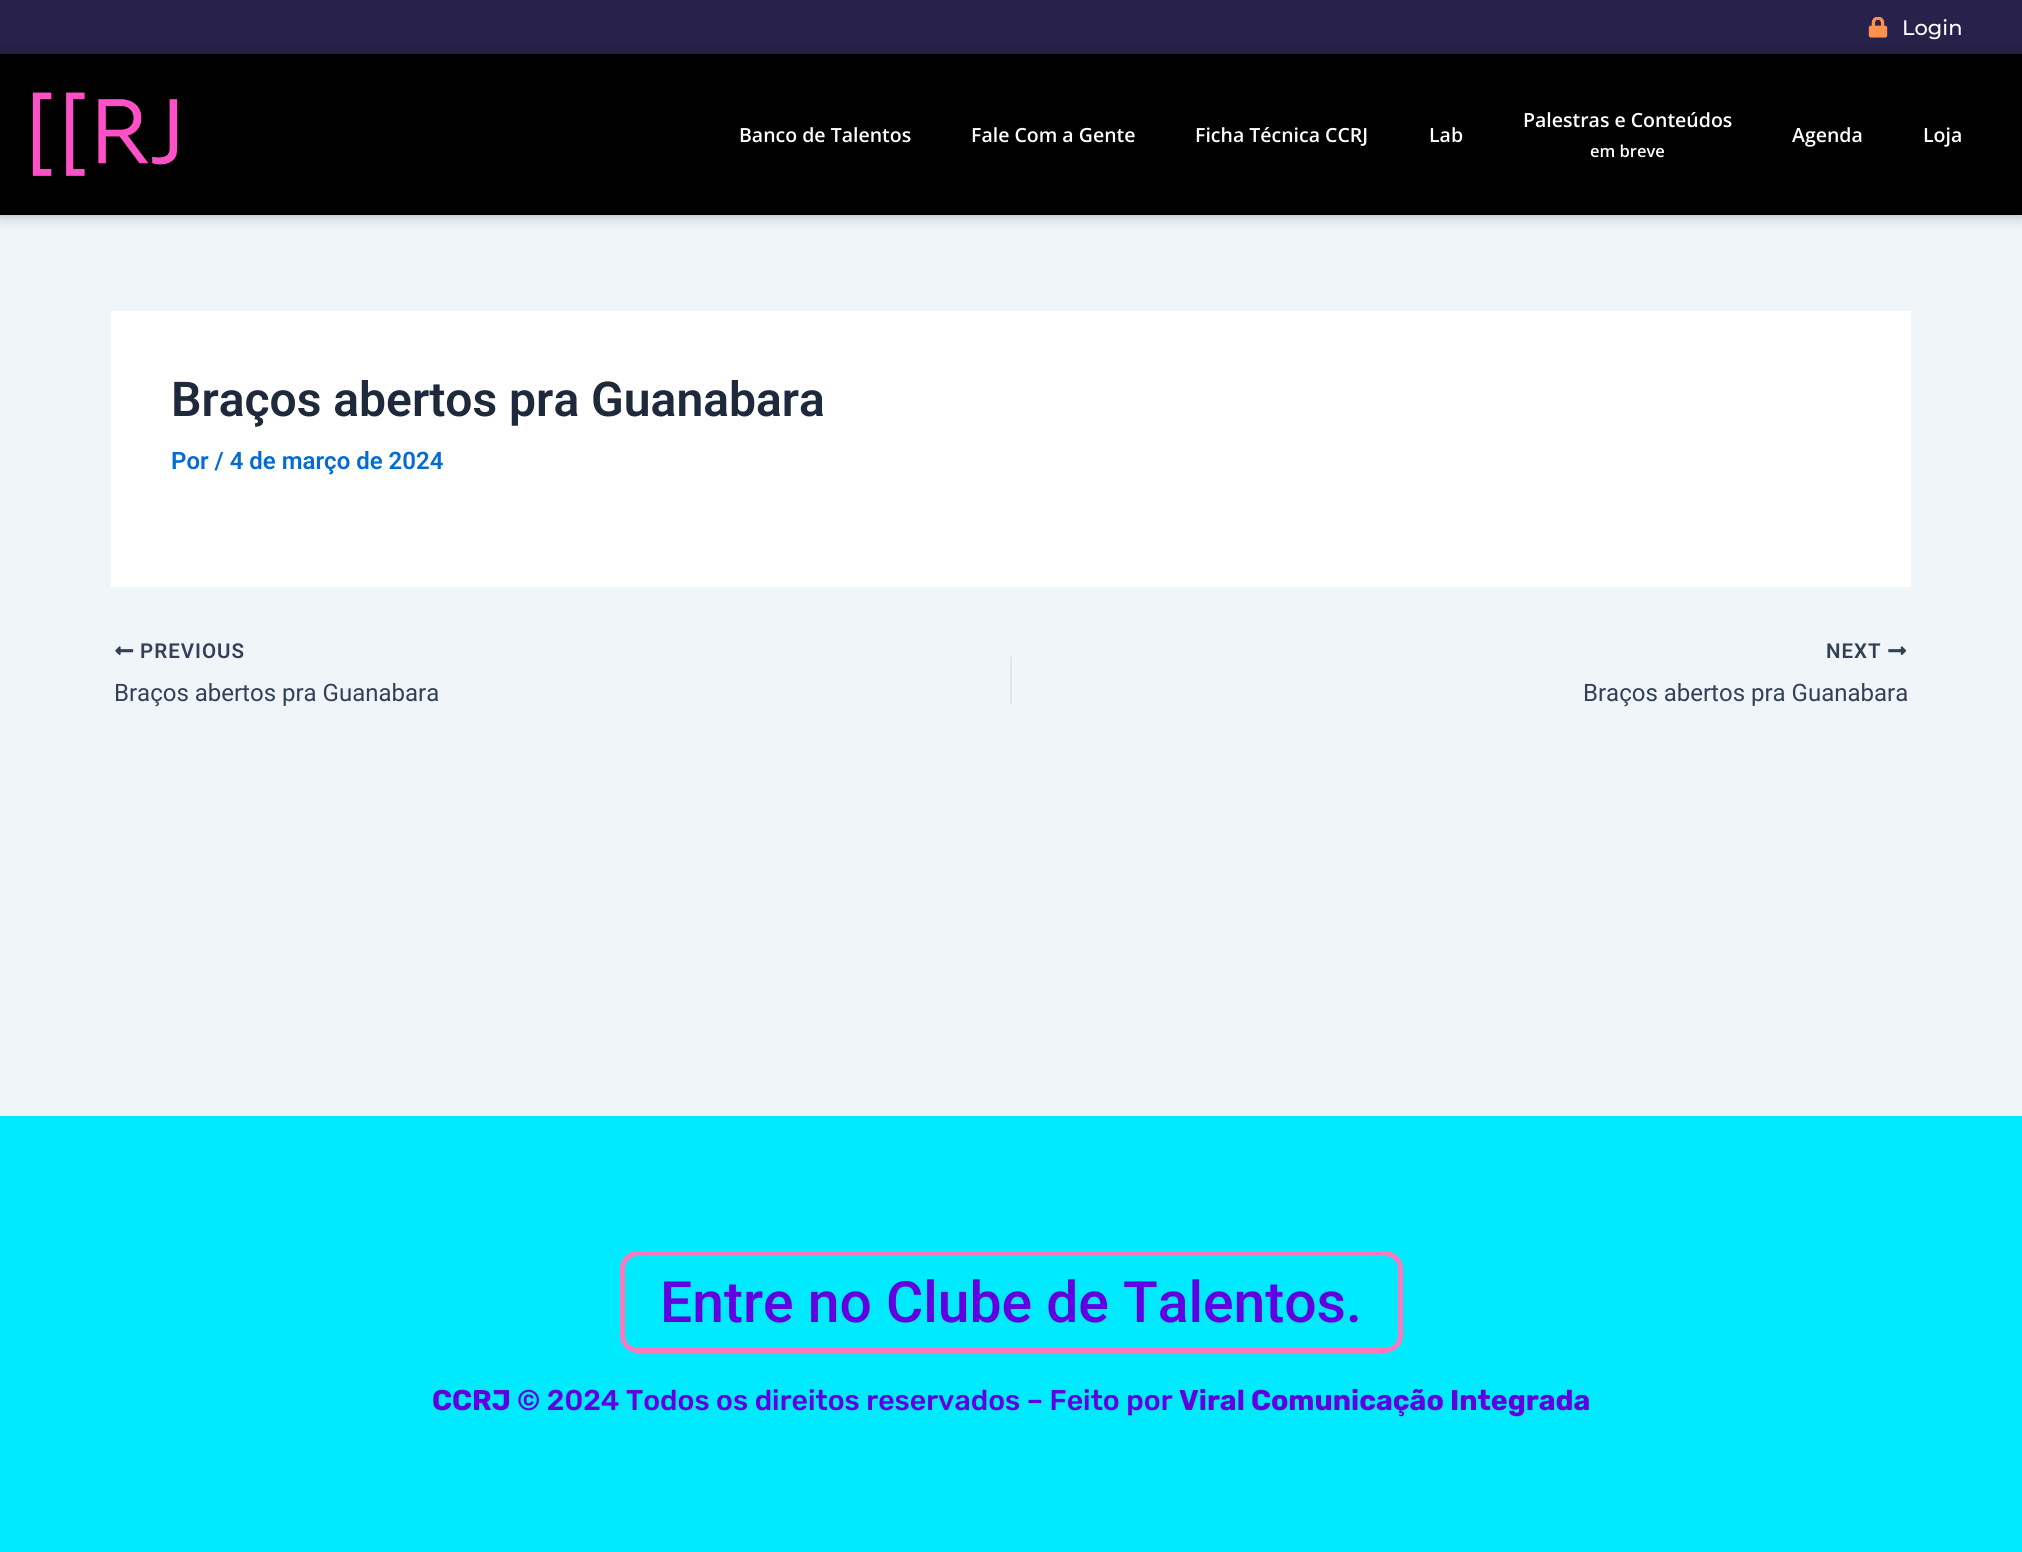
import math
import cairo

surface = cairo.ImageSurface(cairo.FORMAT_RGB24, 2022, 1552)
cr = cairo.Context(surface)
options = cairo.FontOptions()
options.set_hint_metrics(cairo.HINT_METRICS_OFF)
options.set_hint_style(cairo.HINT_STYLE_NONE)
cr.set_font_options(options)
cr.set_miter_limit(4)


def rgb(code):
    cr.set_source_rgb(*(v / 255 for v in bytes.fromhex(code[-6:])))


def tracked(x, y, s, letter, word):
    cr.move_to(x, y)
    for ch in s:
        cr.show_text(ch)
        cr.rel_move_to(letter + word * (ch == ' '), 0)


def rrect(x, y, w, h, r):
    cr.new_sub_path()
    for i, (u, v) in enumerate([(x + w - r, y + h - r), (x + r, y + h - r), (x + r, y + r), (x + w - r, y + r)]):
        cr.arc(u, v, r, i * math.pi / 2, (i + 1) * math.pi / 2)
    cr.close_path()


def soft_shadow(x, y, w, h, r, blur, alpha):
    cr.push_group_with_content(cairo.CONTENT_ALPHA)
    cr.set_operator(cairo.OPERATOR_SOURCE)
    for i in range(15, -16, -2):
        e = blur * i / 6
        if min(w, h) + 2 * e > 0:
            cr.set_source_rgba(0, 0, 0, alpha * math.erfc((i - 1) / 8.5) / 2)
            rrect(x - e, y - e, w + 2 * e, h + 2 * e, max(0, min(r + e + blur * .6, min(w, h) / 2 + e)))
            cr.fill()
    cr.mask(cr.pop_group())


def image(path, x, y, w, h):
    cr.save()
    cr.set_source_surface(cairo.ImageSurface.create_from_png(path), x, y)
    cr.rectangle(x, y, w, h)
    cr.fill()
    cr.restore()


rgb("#f0f5fa")
cr.paint()
rgb("#28214b")
cr.rectangle(0, 0, 2022, 54)
cr.fill()
image("img/1.png", 1868, 17, 20, 21)
rgb("#000000")
soft_shadow(0, 54, 2022, 161, 0, 7.5, 0.3)
rgb("#000000")
cr.rectangle(0, 54, 2022, 161)
cr.fill()
image("img/2.png", 32, 92, 146, 84)
rgb("#ffffff")
cr.rectangle(111, 311, 1800, 276)
cr.fill()
image("img/3.png", 115, 646, 19, 9)
rgb("#e1e8ed")
cr.rectangle(1010, 657, 2, 47)
cr.fill()
image("img/4.png", 1888, 646, 19, 9)
rgb("#00eaff")
cr.rectangle(0, 1116, 2022, 436)
cr.fill()
rrect(622.5, 1253.5, 778, 97, 15.5)
rgb("#ff78be")
cr.set_line_width(5)
cr.stroke()
cr.select_font_face("Montserrat Medium")
cr.set_font_size(21)
rgb("#ffffff")
cr.move_to(1902, 35)
cr.show_text("Login")
cr.select_font_face("Open Sans SemiBold")
cr.set_font_size(19.5)
for x, y, s in [
    (739, 142, "Banco de Talentos"),
    (971, 142, "Fale Com a Gente"),
    (1195, 142, "Ficha Técnica CCRJ"),
    (1429, 142, "Lab"),
    (1523, 127, "Palestras e Conteúdos"),
]:
    cr.move_to(x, y)
    cr.show_text(s)
cr.set_font_size(16.5)
cr.move_to(1590, 157)
cr.show_text("em breve")
cr.set_font_size(19.5)
cr.move_to(1792, 142)
cr.show_text("Agenda")
cr.move_to(1923, 142)
cr.show_text("Loja")
cr.select_font_face("Roboto SemiBold")
cr.set_font_size(48)
rgb("#1e293b")
cr.move_to(171, 416)
cr.show_text("Braços abertos pra Guanabara")
cr.set_font_size(24)
rgb("#046bd2")
cr.move_to(171, 469)
cr.show_text("Por / 4 de março de 2024")
cr.set_font_size(20.5)
rgb("#334155")
tracked(140, 658, "PREVIOUS", 1, 0)
cr.select_font_face("Roboto")
cr.set_font_size(24)
cr.move_to(114, 701)
cr.show_text("Braços abertos pra Guanabara")
cr.select_font_face("Roboto SemiBold")
cr.set_font_size(20.5)
tracked(1826, 658, "NEXT", 1, 0)
cr.select_font_face("Roboto")
cr.set_font_size(24)
cr.move_to(1583, 701)
cr.show_text("Braços abertos pra Guanabara")
cr.select_font_face("Roboto Medium")
cr.set_font_size(57)
rgb("#6300e0")
cr.move_to(660, 1322)
cr.show_text("Entre no Clube de Talentos.")
cr.select_font_face("Rubik", cairo.FONT_SLANT_NORMAL, cairo.FONT_WEIGHT_BOLD)
cr.set_font_size(28.5)
cr.move_to(432, 1410)
cr.show_text("CCRJ")
cr.select_font_face("Rubik Medium")
cr.move_to(517, 1410)
cr.show_text("© 2024 Todos os direitos reservados – Feito por")
cr.select_font_face("Rubik", cairo.FONT_SLANT_NORMAL, cairo.FONT_WEIGHT_BOLD)
cr.move_to(1179, 1410)
cr.show_text("Viral Comunicação Integrada")
surface.write_to_png("page.png")
